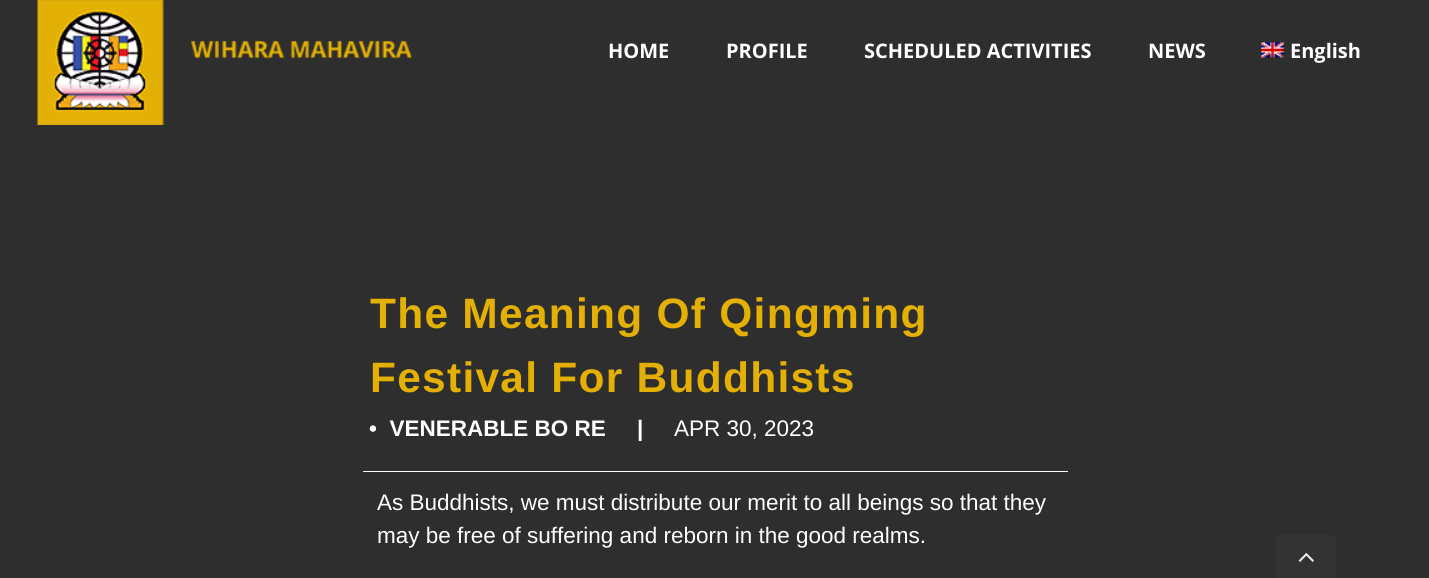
import math
import cairo

surface = cairo.ImageSurface(cairo.FORMAT_RGB24, 1429, 578)
cr = cairo.Context(surface)
options = cairo.FontOptions()
options.set_hint_metrics(cairo.HINT_METRICS_OFF)
options.set_hint_style(cairo.HINT_STYLE_NONE)
cr.set_font_options(options)
cr.set_miter_limit(4)


def rgb(code):
    cr.set_source_rgb(*(v / 255 for v in bytes.fromhex(code[-6:])))


def tracked(x, y, s, letter, word):
    cr.move_to(x, y)
    for ch in s:
        cr.show_text(ch)
        cr.rel_move_to(letter + word * (ch == ' '), 0)


def image(path, x, y, w, h):
    cr.save()
    cr.set_source_surface(cairo.ImageSurface.create_from_png(path), x, y)
    cr.rectangle(x, y, w, h)
    cr.fill()
    cr.restore()


rgb("#2e2e2e")
cr.paint()
image("img/1.png", 37, 0, 375, 125)
image("img/2.png", 1261, 42, 23, 16)
rgb("#fffcfc")
cr.rectangle(363, 471, 705, 1)
cr.fill()
rgb("#333333")
cr.new_path()
cr.move_to(1281, 535)
cr.line_to(1331, 535)
cr.curve_to(1334, 535, 1336, 537, 1336, 540)
cr.line_to(1336, 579)
cr.line_to(1276, 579)
cr.line_to(1276, 540)
cr.curve_to(1276, 537, 1278, 535, 1281, 535)
cr.close_path()
cr.fill()
image("img/3.png", 1298, 553, 16, 9)
cr.select_font_face("Open Sans", cairo.FONT_SLANT_NORMAL, cairo.FONT_WEIGHT_BOLD)
cr.set_font_size(20)
rgb("#ffffff")
for x, y, s in [
    (608, 58, "HOME"),
    (726, 58, "PROFILE"),
    (864, 58, "SCHEDULED ACTIVITIES"),
    (1148, 58, "NEWS"),
    (1290, 58, "English"),
]:
    cr.move_to(x, y)
    cr.show_text(s)
cr.select_font_face("Liberation Sans", cairo.FONT_SLANT_NORMAL, cairo.FONT_WEIGHT_BOLD)
cr.set_font_size(42.5)
rgb("#e4b005")
tracked(370, 328, "The Meaning Of Qingming", 1.25, 0)
tracked(370, 392, "Festival For Buddhists", 1.25, 0)
cr.set_font_size(22.5)
rgb("#ffffff")
cr.move_to(369, 436)
cr.show_text("•  VENERABLE BO RE     |")
cr.select_font_face("Liberation Sans")
for x, y, s in [
    (674, 436, "APR 30, 2023"),
    (377, 510, "As Buddhists, we must distribute our merit to all beings so that they"),
    (377, 543, "may be free of suffering and reborn in the good realms."),
]:
    cr.move_to(x, y)
    cr.show_text(s)
surface.write_to_png("page.png")
